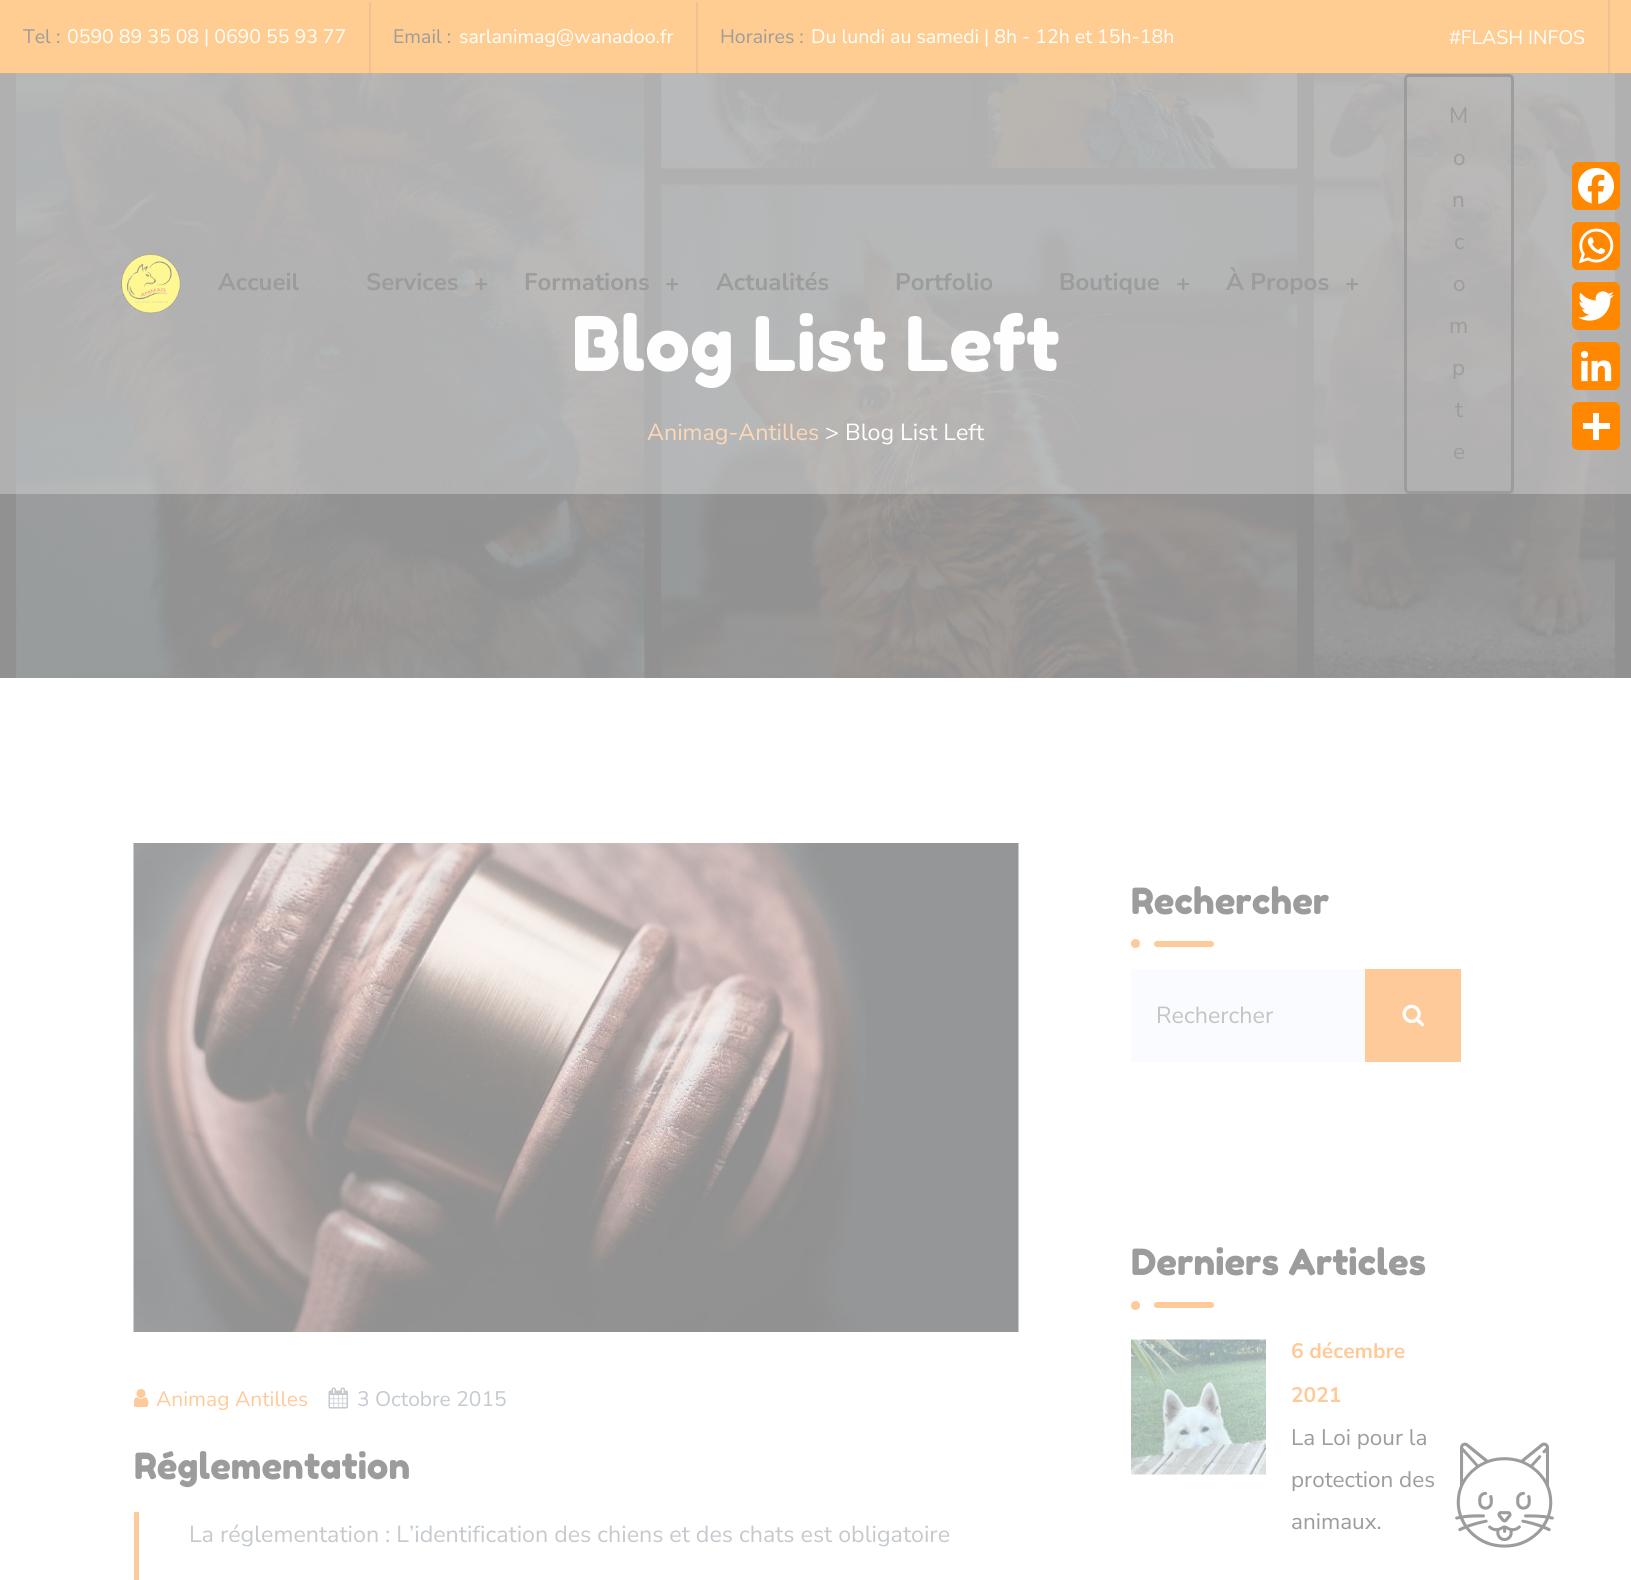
import math
import cairo

surface = cairo.ImageSurface(cairo.FORMAT_RGB24, 1631, 1580)
cr = cairo.Context(surface)
options = cairo.FontOptions()
options.set_hint_metrics(cairo.HINT_METRICS_OFF)
options.set_hint_style(cairo.HINT_STYLE_NONE)
cr.set_font_options(options)
cr.set_miter_limit(4)


def rgb(code):
    cr.set_source_rgb(*(v / 255 for v in bytes.fromhex(code[-6:])))


def rrect(x, y, w, h, r):
    cr.new_sub_path()
    for i, (u, v) in enumerate([(x + w - r, y + h - r), (x + r, y + h - r), (x + r, y + r), (x + w - r, y + r)]):
        cr.arc(u, v, r, i * math.pi / 2, (i + 1) * math.pi / 2)
    cr.close_path()


def image(path, x, y, w, h):
    cr.save()
    cr.set_source_surface(cairo.ImageSurface.create_from_png(path), x, y)
    cr.rectangle(x, y, w, h)
    cr.fill()
    cr.restore()


rgb("#ffffff")
cr.paint()
for x, y, w, h, color in [
    (0, 0, 1631, 74, "#ffcc91"),
    (369, 2, 2, 72, "#f0c195"),
    (696, 2, 2, 72, "#f0c195"),
    (1608, 0, 2, 74, "#f0c195"),
]:
    rgb(color)
    cr.rectangle(x, y, w, h)
    cr.fill()
image("img/2.png", 0, 73, 1631, 605)
image("img/3.png", 133, 843, 886, 489)
image("img/4.png", 134, 1389, 15, 18)
image("img/5.png", 328, 1387, 20, 22)
rgb("#ffca99")
cr.rectangle(134, 1512, 5, 68)
cr.fill()
cr.arc(1135.5, 943.5, 4.5, 0, 2 * math.pi)
cr.fill()
rrect(1154, 941, 60, 6, 3)
cr.fill()
rgb("#f9fbfe")
cr.rectangle(1131, 969, 234, 93)
cr.fill()
rgb("#ffca99")
cr.rectangle(1365, 969, 96, 93)
cr.fill()
image("img/6.png", 1402, 1004, 23, 23)
cr.arc(1135.5, 1305.5, 4.5, 0, 2 * math.pi)
cr.fill()
rrect(1154, 1302, 60, 6, 3)
cr.fill()
image("img/7.png", 1131, 1339, 135, 136)
image("img/12.png", 1455, 1442, 99, 106)
cr.select_font_face("Nunito Sans")
cr.set_font_size(19.5)
rgb("#9c9c9c")
cr.move_to(23, 43)
cr.show_text("Tel :")
rgb("#ffffff")
cr.move_to(67, 43)
cr.show_text("0590 89 35 08 | 0690 55 93 77")
rgb("#9c9c9c")
cr.move_to(393, 43)
cr.show_text("Email :")
rgb("#ffffff")
cr.move_to(459, 43)
cr.show_text("sarlanimag@wanadoo.fr")
rgb("#9c9c9c")
cr.move_to(720, 43)
cr.show_text("Horaires :")
rgb("#ffffff")
cr.move_to(811, 43)
cr.show_text("Du lundi au samedi | 8h - 12h et 15h-18h")
cr.move_to(1449, 44)
cr.show_text("#FLASH INFOS")
cr.select_font_face("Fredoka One")
cr.set_font_size(75)
cr.move_to(572, 371)
cr.show_text("Blog List Left")
cr.select_font_face("Nunito Sans")
cr.set_font_size(23.25)
rgb("#ffca99")
cr.move_to(647, 440)
cr.show_text("Animag-Antilles")
rgb("#ffffff")
cr.move_to(825, 440)
cr.show_text("> Blog List Left")
cr.set_source_rgba(0.996, 0.996, 0.996, 0.29)
cr.rectangle(0, 74, 1631, 420)
cr.fill()
cr.select_font_face("Nunito Sans", cairo.FONT_SLANT_NORMAL, cairo.FONT_WEIGHT_BOLD)
cr.set_font_size(24)
rgb("#9c9c9c")
for x, y, s in [
    (1345, 291, "+"),
    (1226, 290, "À Propos"),
    (1176, 291, "+"),
    (1059, 290, "Boutique"),
    (895, 290, "Portfolio"),
    (716, 290, "Actualités"),
    (665, 291, "+"),
    (524, 290, "Formations"),
    (474, 291, "+"),
    (366, 290, "Services"),
    (218, 290, "Accueil"),
]:
    cr.move_to(x, y)
    cr.show_text(s)
rrect(1405.5, 75.5, 107, 417, 3.5)
cr.set_line_width(3)
cr.stroke()
cr.select_font_face("Nunito Sans")
cr.set_font_size(22.5)
for x, y, s in [
    (1453, 459, "e"),
    (1455, 417, "t"),
    (1452, 375, "p"),
    (1449, 333, "m"),
    (1453, 291, "o"),
    (1454, 249, "c"),
    (1452, 207, "n"),
    (1453, 165, "o"),
    (1449, 123, "M"),
]:
    cr.move_to(x, y)
    cr.show_text(s)
image("img/1.png", 121, 254, 60, 60)
cr.set_font_size(21)
rgb("#ffca99")
cr.move_to(156, 1406)
cr.show_text("Animag Antilles")
rgb("#c5cacf")
cr.move_to(357, 1406)
cr.show_text("3 Octobre 2015")
cr.select_font_face("Fredoka One")
cr.set_font_size(36)
rgb("#9c9c9c")
cr.move_to(134, 1479)
cr.show_text("Réglementation")
cr.select_font_face("Nunito Sans")
cr.set_font_size(23.25)
rgb("#c5cacf")
cr.move_to(189, 1542)
cr.show_text("La réglementation : L’identification des chiens et des chats est obligatoire")
cr.select_font_face("Fredoka One")
cr.set_font_size(36)
rgb("#9c9c9c")
cr.move_to(1131, 914)
cr.show_text("Rechercher")
cr.select_font_face("Nunito Sans")
cr.set_font_size(23.25)
rgb("#c4c4c4")
cr.move_to(1156, 1023)
cr.show_text("Rechercher")
cr.select_font_face("Fredoka One")
cr.set_font_size(36)
rgb("#9c9c9c")
cr.move_to(1131, 1275)
cr.show_text("Derniers Articles")
cr.select_font_face("Nunito Sans", cairo.FONT_SLANT_NORMAL, cairo.FONT_WEIGHT_BOLD)
cr.set_font_size(21)
rgb("#ffca99")
cr.move_to(1291, 1358)
cr.show_text("6 décembre")
cr.move_to(1291, 1402)
cr.show_text("2021")
cr.select_font_face("Nunito Sans")
cr.set_font_size(22.5)
rgb("#9c9c9c")
for x, y, s in [
    (1291, 1445, "La Loi pour la"),
    (1291, 1487, "protection des"),
    (1291, 1529, "animaux."),
]:
    cr.move_to(x, y)
    cr.show_text(s)
rgb("#ff8800")
rrect(1572, 162, 48, 48, 6)
cr.fill()
image("img/8.png", 1578, 168, 36, 36)
rrect(1572, 222, 48, 48, 6)
cr.fill()
image("img/9.png", 1578, 228, 36, 36)
rrect(1572, 282, 48, 48, 6)
cr.fill()
image("img/10.png", 1578, 291, 36, 30)
rrect(1572, 342, 48, 48, 6)
cr.fill()
image("img/11.png", 1580, 350, 32, 32)
rrect(1572, 402, 48, 48, 6)
cr.fill()
rgb("#ffffff")
cr.rectangle(1593, 413, 6, 27)
cr.fill()
cr.rectangle(1583, 423, 27, 6)
cr.fill()
surface.write_to_png("page.png")
